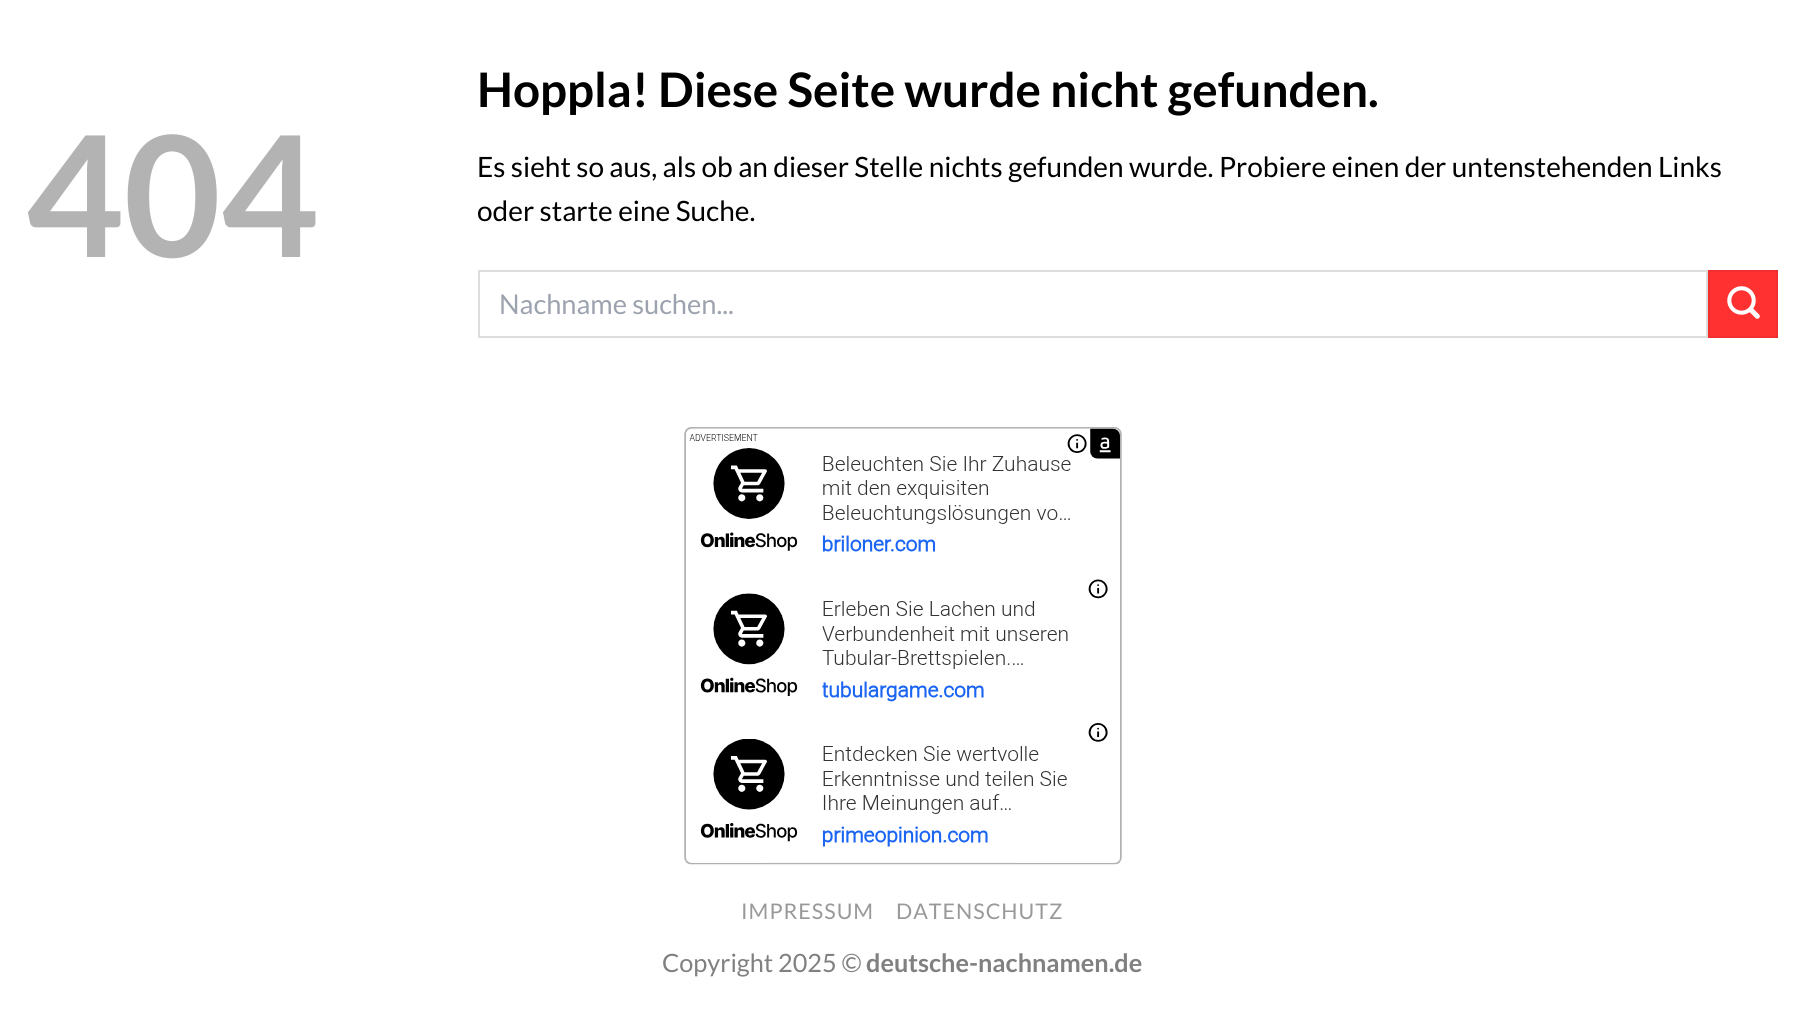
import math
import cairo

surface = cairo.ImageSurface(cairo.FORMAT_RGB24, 1803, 1009)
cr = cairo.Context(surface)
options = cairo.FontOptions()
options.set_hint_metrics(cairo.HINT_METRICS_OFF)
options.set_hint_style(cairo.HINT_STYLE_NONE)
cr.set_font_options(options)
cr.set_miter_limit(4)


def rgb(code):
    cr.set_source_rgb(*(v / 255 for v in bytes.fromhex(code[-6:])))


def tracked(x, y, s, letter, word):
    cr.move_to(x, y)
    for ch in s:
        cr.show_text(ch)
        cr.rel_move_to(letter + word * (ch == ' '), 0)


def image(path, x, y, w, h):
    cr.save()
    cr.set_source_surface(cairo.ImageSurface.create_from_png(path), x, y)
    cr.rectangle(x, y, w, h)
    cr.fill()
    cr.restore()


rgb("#ffffff")
cr.paint()
cr.rectangle(479, 271, 1228, 66)
rgb("#dddddd")
cr.stroke()
rgb("#ff3131")
cr.rectangle(1709, 271, 68, 66)
cr.fill_preserve()
rgb("#f22f2f")
cr.stroke()
image("img/1.png", 1727, 286, 33, 33)
image("img/2.png", 684, 427, 438, 438)
cr.select_font_face("Lato", cairo.FONT_SLANT_NORMAL, cairo.FONT_WEIGHT_BOLD)
cr.set_font_size(168)
rgb("#b3b3b3")
cr.move_to(26, 257)
cr.show_text("404")
cr.set_font_size(47.6)
rgb("#000000")
cr.move_to(477, 107)
cr.show_text("Hoppla! Diese Seite wurde nicht gefunden.")
cr.select_font_face("Lato")
cr.set_font_size(28)
cr.move_to(477, 177)
cr.show_text("Es sieht so aus, als ob an dieser Stelle nichts gefunden wurde. Probiere einen der untenstehenden Links")
cr.move_to(477, 221)
cr.show_text("oder starte eine Suche.")
cr.set_font_size(27.25)
rgb("#9ca3af")
cr.move_to(499, 314)
cr.show_text("Nachname suchen...")
cr.set_font_size(21.5)
rgb("#999999")
tracked(741, 919, "IMPRESSUM", 1, 0)
tracked(896, 919, "DATENSCHUTZ", 1, 0)
cr.set_font_size(25.25)
rgb("#808080")
cr.move_to(662, 972)
cr.show_text("Copyright 2025 ©")
cr.select_font_face("Lato", cairo.FONT_SLANT_NORMAL, cairo.FONT_WEIGHT_BOLD)
cr.move_to(866, 972)
cr.show_text("deutsche-nachnamen.de")
surface.write_to_png("page.png")
